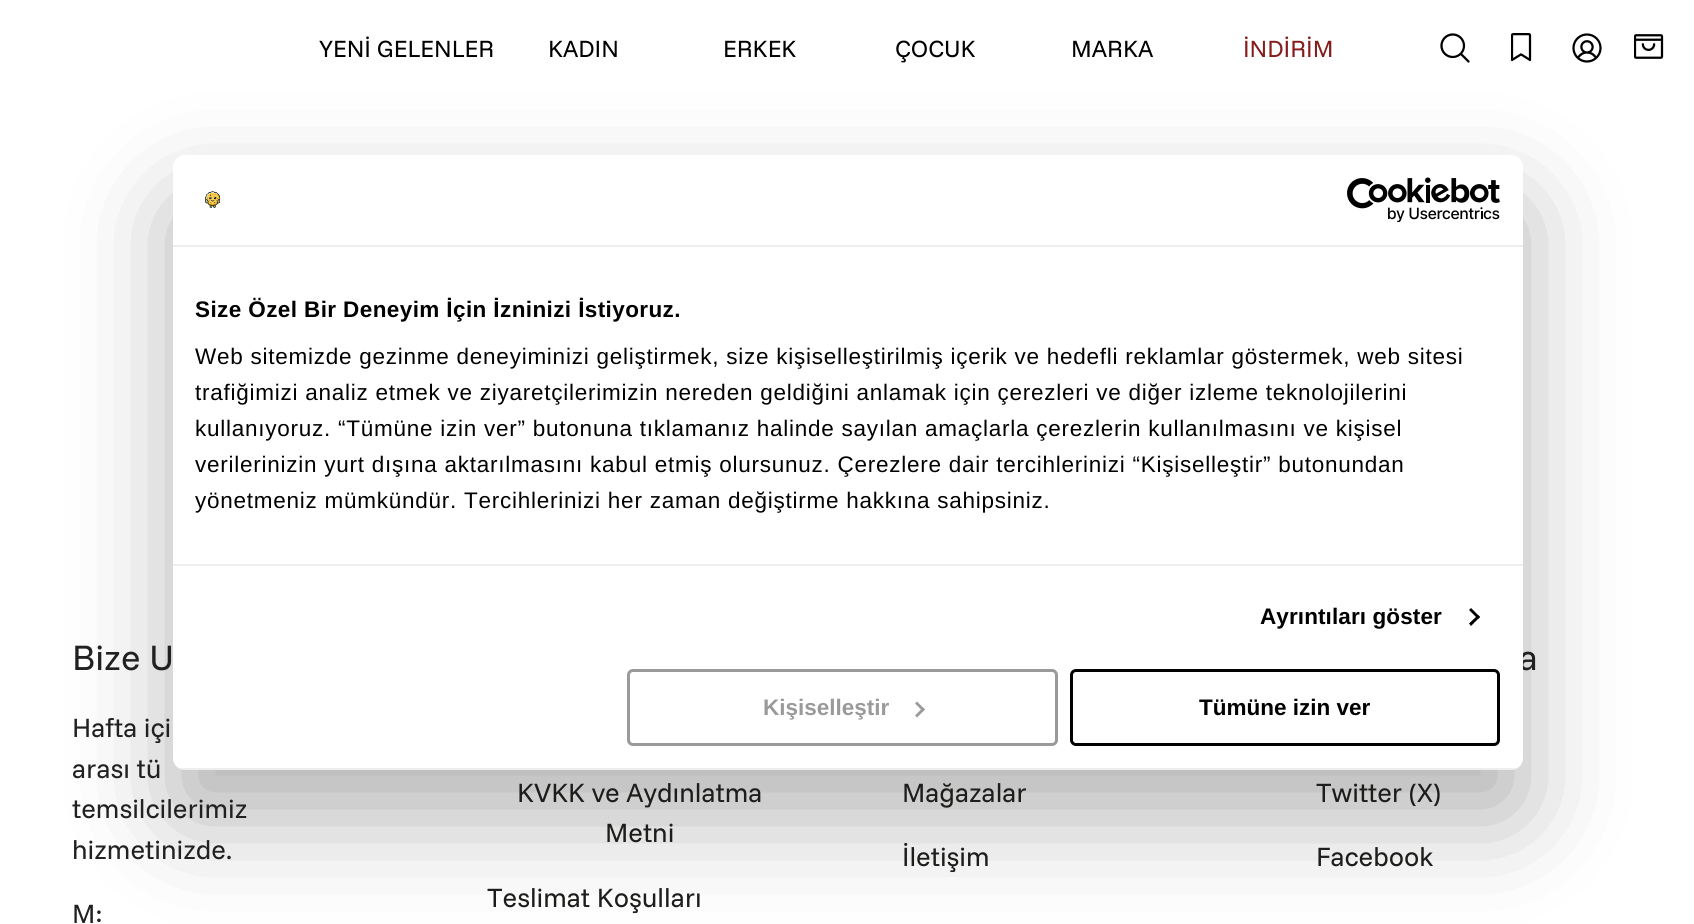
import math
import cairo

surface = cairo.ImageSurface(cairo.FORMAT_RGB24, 1694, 924)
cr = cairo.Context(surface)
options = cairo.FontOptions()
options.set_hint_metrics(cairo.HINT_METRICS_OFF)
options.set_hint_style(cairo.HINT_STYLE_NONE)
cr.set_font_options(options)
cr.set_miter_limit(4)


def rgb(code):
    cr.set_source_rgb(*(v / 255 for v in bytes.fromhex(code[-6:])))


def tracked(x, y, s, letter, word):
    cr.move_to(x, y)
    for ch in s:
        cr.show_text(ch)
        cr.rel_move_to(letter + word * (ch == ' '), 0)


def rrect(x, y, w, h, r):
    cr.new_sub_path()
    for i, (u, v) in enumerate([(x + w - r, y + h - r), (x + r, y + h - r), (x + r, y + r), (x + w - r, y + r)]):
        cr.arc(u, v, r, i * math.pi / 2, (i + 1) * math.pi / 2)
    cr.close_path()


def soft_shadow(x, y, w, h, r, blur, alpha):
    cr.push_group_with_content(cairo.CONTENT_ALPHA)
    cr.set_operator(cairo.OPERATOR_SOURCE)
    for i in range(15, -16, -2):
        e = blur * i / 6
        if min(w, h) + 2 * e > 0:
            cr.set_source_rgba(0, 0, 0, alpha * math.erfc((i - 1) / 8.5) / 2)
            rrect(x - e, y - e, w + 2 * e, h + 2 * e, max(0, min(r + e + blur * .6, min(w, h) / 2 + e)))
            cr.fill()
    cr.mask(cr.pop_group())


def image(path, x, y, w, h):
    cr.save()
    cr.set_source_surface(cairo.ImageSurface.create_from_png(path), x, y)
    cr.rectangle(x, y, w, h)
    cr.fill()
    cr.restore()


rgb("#ffffff")
cr.paint()
image("img/1.png", 1440, 33, 30, 30)
image("img/2.png", 1511, 33, 21, 29)
image("img/3.png", 1572, 33, 30, 30)
image("img/4.png", 1634, 34, 30, 25)
rgb("#000000")
soft_shadow(173, 203, 1350, 615, 12, 51, 0.3)
cr.select_font_face("Funnel Sans")
cr.set_font_size(24)
rgb("#000000")
for x, y, s in [
    (319, 57, "YENİ GELENLER"),
    (548, 57, "KADIN"),
    (723, 57, "ERKEK"),
    (895, 57, "ÇOCUK"),
    (1071, 57, "MARKA"),
]:
    cr.move_to(x, y)
    cr.show_text(s)
rgb("#861d1d")
cr.move_to(1243, 57)
cr.show_text("İNDİRİM")
cr.set_font_size(36)
rgb("#212121")
cr.move_to(72, 670)
cr.show_text("Bize U")
cr.set_font_size(27)
for x, y, s in [
    (72, 737, "Hafta içi"),
    (72, 778, "arası tü"),
    (72, 818, "temsilcilerimiz"),
    (72, 859, "hizmetinizde."),
    (72, 923, "M:"),
]:
    cr.move_to(x, y)
    cr.show_text(s)
rgb("#1d1d1b")
for x, y, s in [
    (517, 802, "KVKK ve Aydınlatma"),
    (605, 842, "Metni"),
    (487, 907, "Teslimat Koşulları"),
    (902, 802, "Mağazalar"),
    (902, 866, "İletişim"),
]:
    cr.move_to(x, y)
    cr.show_text(s)
cr.set_font_size(36)
rgb("#212121")
cr.move_to(1519, 670)
cr.show_text("a")
cr.set_font_size(27)
rgb("#1d1d1b")
cr.move_to(1316, 802)
cr.show_text("Twitter (X)")
cr.move_to(1316, 866)
cr.show_text("Facebook")
rgb("#ffffff")
rrect(173, 155, 1350, 615, 12)
cr.fill()
rgb("#eeeeee")
cr.rectangle(173, 245, 1350, 2)
cr.fill()
image("img/5.png", 205, 191, 16, 17)
image("img/6.png", 1347, 177, 153, 45)
cr.rectangle(173, 564, 1350, 2)
cr.fill()
cr.select_font_face("Liberation Sans", cairo.FONT_SLANT_NORMAL, cairo.FONT_WEIGHT_BOLD)
cr.set_font_size(22.5)
rgb("#000000")
tracked(195, 317, "Size Özel Bir Deneyim İçin İzninizi İstiyoruz.", 0.4, 0)
cr.select_font_face("Liberation Sans")
for x, y, s in [
    (195, 364, "Web sitemizde gezinme deneyiminizi geliştirmek, size kişiselleştirilmiş içerik ve hedefli reklamlar göstermek, web sitesi"),
    (195, 400, "trafiğimizi analiz etmek ve ziyaretçilerimizin nereden geldiğini anlamak için çerezleri ve diğer izleme teknolojilerini"),
    (195, 436, "kullanıyoruz. “Tümüne izin ver” butonuna tıklamanız halinde sayılan amaçlarla çerezlerin kullanılmasını ve kişisel"),
    (195, 472, "verilerinizin yurt dışına aktarılmasını kabul etmiş olursunuz. Çerezlere dair tercihlerinizi “Kişiselleştir” butonundan"),
    (195, 508, "yönetmeniz mümkündür. Tercihlerinizi her zaman değiştirme hakkına sahipsiniz."),
]:
    tracked(x, y, s, 0.75, 0)
cr.select_font_face("Liberation Sans", cairo.FONT_SLANT_NORMAL, cairo.FONT_WEIGHT_BOLD)
tracked(1260, 624, "Ayrıntıları göster", 0.1, 0)
cr.new_path()
cr.move_to(1471, 608)
cr.line_to(1480, 617)
cr.line_to(1478, 619)
cr.line_to(1469, 610)
cr.close_path()
cr.fill()
cr.new_path()
cr.move_to(1478, 615)
cr.line_to(1480, 617)
cr.line_to(1471, 626)
cr.line_to(1469, 623.5)
cr.close_path()
cr.fill()
cr.save()
rrect(173, 155, 1350, 615, 12)
cr.clip()
rgb("#eeeeee")
cr.rectangle(173, 768, 1350, 2)
cr.fill()
cr.restore()
rrect(628.5, 670.5, 428, 74, 4.5)
rgb("#9a9a9a")
cr.set_line_width(3)
cr.stroke()
cr.move_to(763, 715)
cr.show_text("Kişiselleştir")
cr.new_path()
cr.move_to(917, 701.5)
cr.line_to(925, 709.5)
cr.line_to(923, 711.5)
cr.line_to(915, 703.5)
cr.close_path()
cr.fill()
cr.new_path()
cr.move_to(923, 707.5)
cr.line_to(925, 709.5)
cr.line_to(917, 717.5)
cr.line_to(915, 715.5)
cr.close_path()
cr.fill()
rrect(1071.5, 670.5, 427, 74, 4.5)
rgb("#000000")
cr.stroke()
cr.move_to(1199, 715)
cr.show_text("Tümüne izin ver")
surface.write_to_png("page.png")
